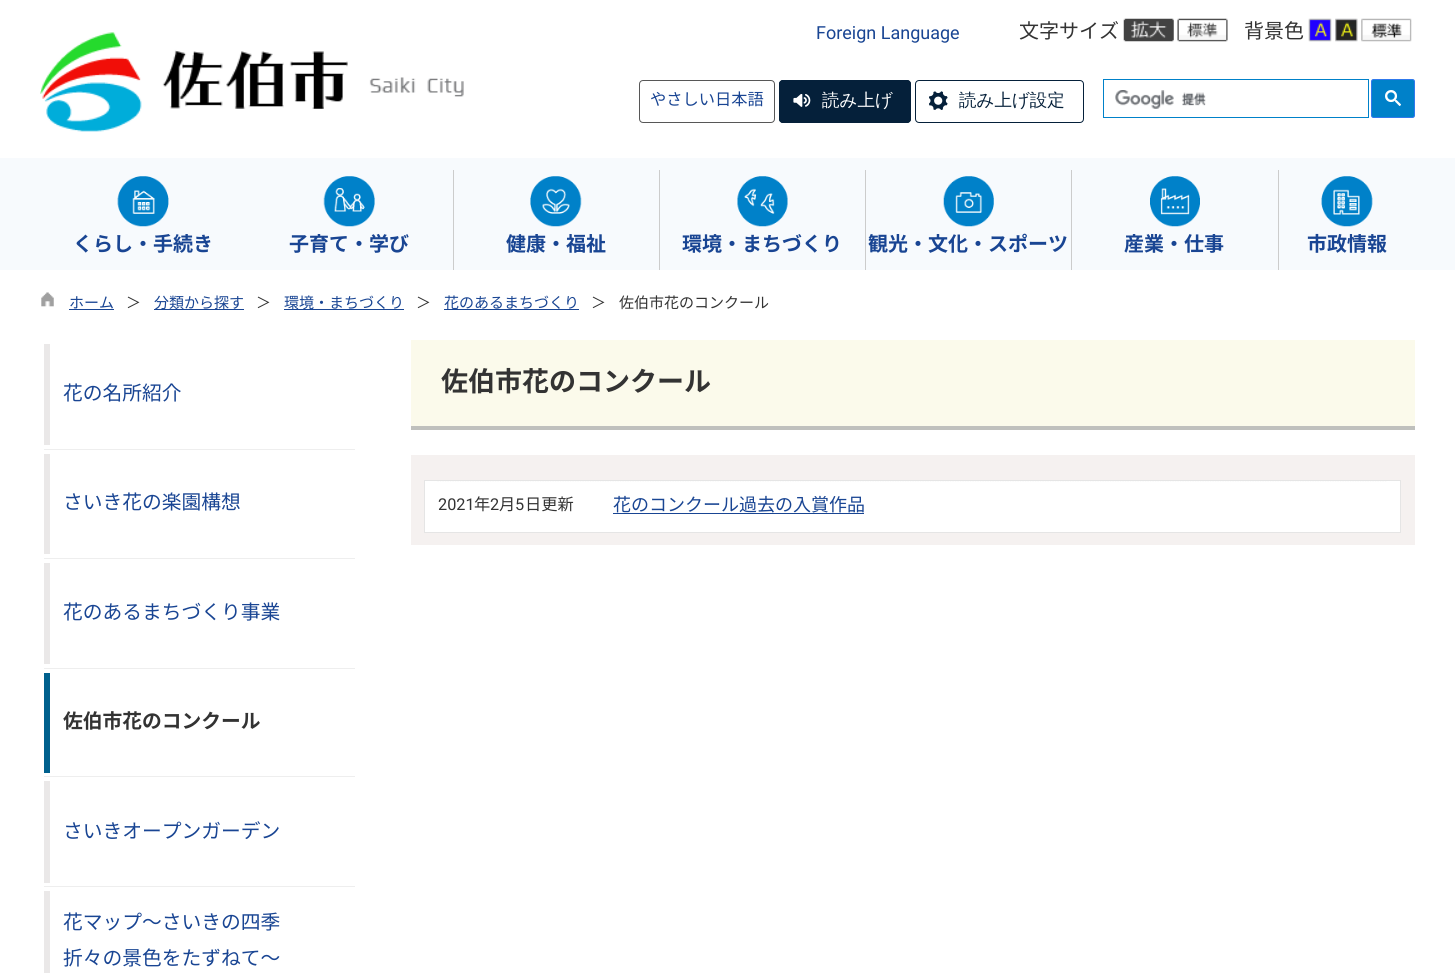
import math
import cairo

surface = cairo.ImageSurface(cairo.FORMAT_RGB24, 1455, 973)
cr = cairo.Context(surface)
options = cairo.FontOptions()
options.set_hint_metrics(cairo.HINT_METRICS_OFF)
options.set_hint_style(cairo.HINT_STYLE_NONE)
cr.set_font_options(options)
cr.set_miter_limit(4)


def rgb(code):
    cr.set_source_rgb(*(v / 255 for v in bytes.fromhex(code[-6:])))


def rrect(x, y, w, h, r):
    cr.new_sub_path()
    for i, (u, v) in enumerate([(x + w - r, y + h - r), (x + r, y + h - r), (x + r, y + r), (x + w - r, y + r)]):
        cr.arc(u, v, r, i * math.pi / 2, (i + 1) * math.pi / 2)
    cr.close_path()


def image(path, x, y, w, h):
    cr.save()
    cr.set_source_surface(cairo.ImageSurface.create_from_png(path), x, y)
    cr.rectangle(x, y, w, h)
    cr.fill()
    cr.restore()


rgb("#ffffff")
cr.paint()
image("img/1.png", 40, 32, 424, 100)
image("img/2.png", 1123, 18, 51, 24)
image("img/3.png", 1177, 18, 51, 24)
image("img/4.png", 1308, 18, 24, 24)
image("img/5.png", 1335, 18, 23, 24)
image("img/6.png", 1361, 18, 51, 24)
rrect(639.5, 80.5, 135, 42, 3.5)
rgb("#575757")
cr.set_line_width(1)
cr.stroke()
rgb("#05203a")
rrect(779, 80, 132, 43, 4)
cr.fill()
image("img/7.png", 793, 94, 18, 13)
rrect(779.5, 80.5, 131, 42, 3.5)
cr.stroke()
image("img/8.png", 929, 91, 19, 19)
rrect(915.5, 80.5, 168, 42, 3.5)
cr.stroke()
cr.rectangle(1103.5, 79.5, 265, 38)
rgb("#0081c9")
cr.stroke()
image("img/9.png", 1115, 90, 91, 19)
rrect(1371.5, 79.5, 43, 38, 2)
cr.fill_preserve()
rgb("#3079ed")
cr.stroke()
image("img/10.png", 1385, 90, 16, 16)
rgb("#f7fafd")
cr.rectangle(0, 158, 1455, 112)
cr.fill()
image("img/11.png", 117, 176, 52, 51)
rgb("#cccccc")
cr.rectangle(453, 170, 1, 100)
cr.fill()
image("img/12.png", 323, 176, 52, 51)
cr.rectangle(659, 170, 1, 100)
cr.fill()
image("img/13.png", 530, 176, 52, 51)
cr.rectangle(865, 170, 1, 100)
cr.fill()
image("img/14.png", 737, 176, 51, 51)
cr.rectangle(1071, 170, 1, 100)
cr.fill()
image("img/15.png", 943, 176, 51, 51)
cr.rectangle(1278, 170, 1, 100)
cr.fill()
image("img/16.png", 1150, 176, 50, 51)
image("img/17.png", 1321, 176, 52, 51)
image("img/18.png", 41, 292, 13, 15)
for x, y, w, h, color in [
    (69, 309, 45, 1, "#194593"),
    (154, 309, 90, 1, "#194593"),
    (284, 309, 120, 1, "#194593"),
    (444, 309, 135, 1, "#194593"),
    (44, 344, 6, 101, "#eae8e8"),
    (44, 449, 311, 1, "#eeeeee"),
    (44, 454, 6, 100, "#eae8e8"),
    (44, 558, 311, 1, "#eeeeee"),
    (44, 563, 6, 101, "#eae8e8"),
    (44, 668, 311, 1, "#eeeeee"),
    (44, 673, 6, 100, "#00608d"),
    (44, 776, 311, 1, "#eeeeee"),
    (44, 781, 6, 102, "#eae8e8"),
    (44, 886, 311, 1, "#eeeeee"),
    (44, 891, 6, 82, "#eae8e8"),
    (411, 340, 1004, 86, "#fbfaeb"),
    (411, 426, 1004, 4, "#bfc0bd"),
    (411, 455, 1004, 90, "#f5f1f0"),
]:
    rgb(color)
    cr.rectangle(x, y, w, h)
    cr.fill()
rgb("#ffffff")
cr.rectangle(424.5, 480.5, 976, 52)
cr.fill_preserve()
rgb("#e5e5e5")
cr.stroke()
cr.save()
cr.rectangle(425, 481, 975, 50)
cr.clip()
cr.new_path()
cr.move_to(437.5, 480.5)
cr.line_to(1387.5, 480.5)
rgb("#cccccc")
cr.set_line_width(1.2)
cr.set_dash([1.25, 1.25])
cr.stroke()
cr.restore()
rgb("#194593")
cr.rectangle(613, 513, 251, 1)
cr.fill()
cr.select_font_face("Roboto")
cr.set_font_size(18)
cr.move_to(816, 39)
cr.show_text("Foreign Language")
cr.select_font_face("Noto Sans CJK JP")
cr.set_font_size(20)
rgb("#333333")
cr.move_to(1019, 38)
cr.show_text("文字サイズ")
cr.move_to(1244, 38)
cr.show_text("背景色")
cr.set_font_size(16.25)
rgb("#194593")
cr.move_to(650, 105)
cr.show_text("やさしい日本語")
cr.select_font_face("WenQuanYi Zen Hei Medium")
cr.set_font_size(17.5)
rgb("#ffffff")
cr.move_to(822, 106)
cr.show_text("読み上げ")
rgb("#05203a")
cr.move_to(959, 106)
cr.show_text("読み上げ設定")
cr.select_font_face("Noto Sans CJK JP", cairo.FONT_SLANT_NORMAL, cairo.FONT_WEIGHT_BOLD)
cr.set_font_size(20)
rgb("#194593")
for x, y, s in [
    (73, 251, "くらし・手続き"),
    (289, 251, "子育て・学び"),
    (506, 251, "健康・福祉"),
    (682, 251, "環境・まちづくり"),
    (868, 251, "観光・文化・スポーツ"),
    (1124, 251, "産業・仕事"),
    (1307, 251, "市政情報"),
]:
    cr.move_to(x, y)
    cr.show_text(s)
cr.select_font_face("Noto Sans CJK JP")
cr.set_font_size(15)
cr.move_to(69, 308)
cr.show_text("ホーム")
rgb("#333333")
cr.move_to(126, 308)
cr.show_text("＞")
rgb("#194593")
cr.move_to(154, 308)
cr.show_text("分類から探す")
rgb("#333333")
cr.move_to(256, 308)
cr.show_text("＞")
rgb("#194593")
cr.move_to(284, 308)
cr.show_text("環境・まちづくり")
rgb("#333333")
cr.move_to(416, 308)
cr.show_text("＞")
rgb("#194593")
cr.move_to(444, 308)
cr.show_text("花のあるまちづくり")
rgb("#333333")
cr.move_to(591, 308)
cr.show_text("＞")
cr.move_to(619, 308)
cr.show_text("佐伯市花のコンクール")
cr.set_font_size(19.75)
rgb("#194593")
for x, y, s in [
    (63, 400, "花の名所紹介"),
    (63, 509, "さいき花の楽園構想"),
    (63, 619, "花のあるまちづくり事業"),
]:
    cr.move_to(x, y)
    cr.show_text(s)
cr.select_font_face("Noto Sans CJK JP", cairo.FONT_SLANT_NORMAL, cairo.FONT_WEIGHT_BOLD)
rgb("#333333")
cr.move_to(63, 728)
cr.show_text("佐伯市花のコンクール")
cr.select_font_face("Noto Sans CJK JP")
rgb("#194593")
for x, y, s in [
    (63, 838, "さいきオープンガーデン"),
    (63, 929, "花マップ～さいきの四季"),
    (63, 965, "折々の景色をたずねて～"),
]:
    cr.move_to(x, y)
    cr.show_text(s)
cr.select_font_face("Noto Sans CJK JP", cairo.FONT_SLANT_NORMAL, cairo.FONT_WEIGHT_BOLD)
cr.set_font_size(27)
rgb("#333333")
cr.move_to(441, 391)
cr.show_text("佐伯市花のコンクール")
cr.select_font_face("Roboto")
cr.set_font_size(16.25)
cr.move_to(438, 510)
cr.show_text("2021")
cr.select_font_face("Noto Sans CJK JP")
cr.move_to(474, 510)
cr.show_text("年")
cr.select_font_face("Roboto")
cr.move_to(490, 510)
cr.show_text("2")
cr.select_font_face("Noto Sans CJK JP")
cr.move_to(499, 510)
cr.show_text("月")
cr.select_font_face("Roboto")
cr.move_to(515, 510)
cr.show_text("5")
cr.select_font_face("Noto Sans CJK JP")
cr.move_to(525, 510)
cr.show_text("日更新")
cr.set_font_size(18)
rgb("#194593")
cr.move_to(613, 511)
cr.show_text("花のコンクール過去の入賞作品")
surface.write_to_png("page.png")
